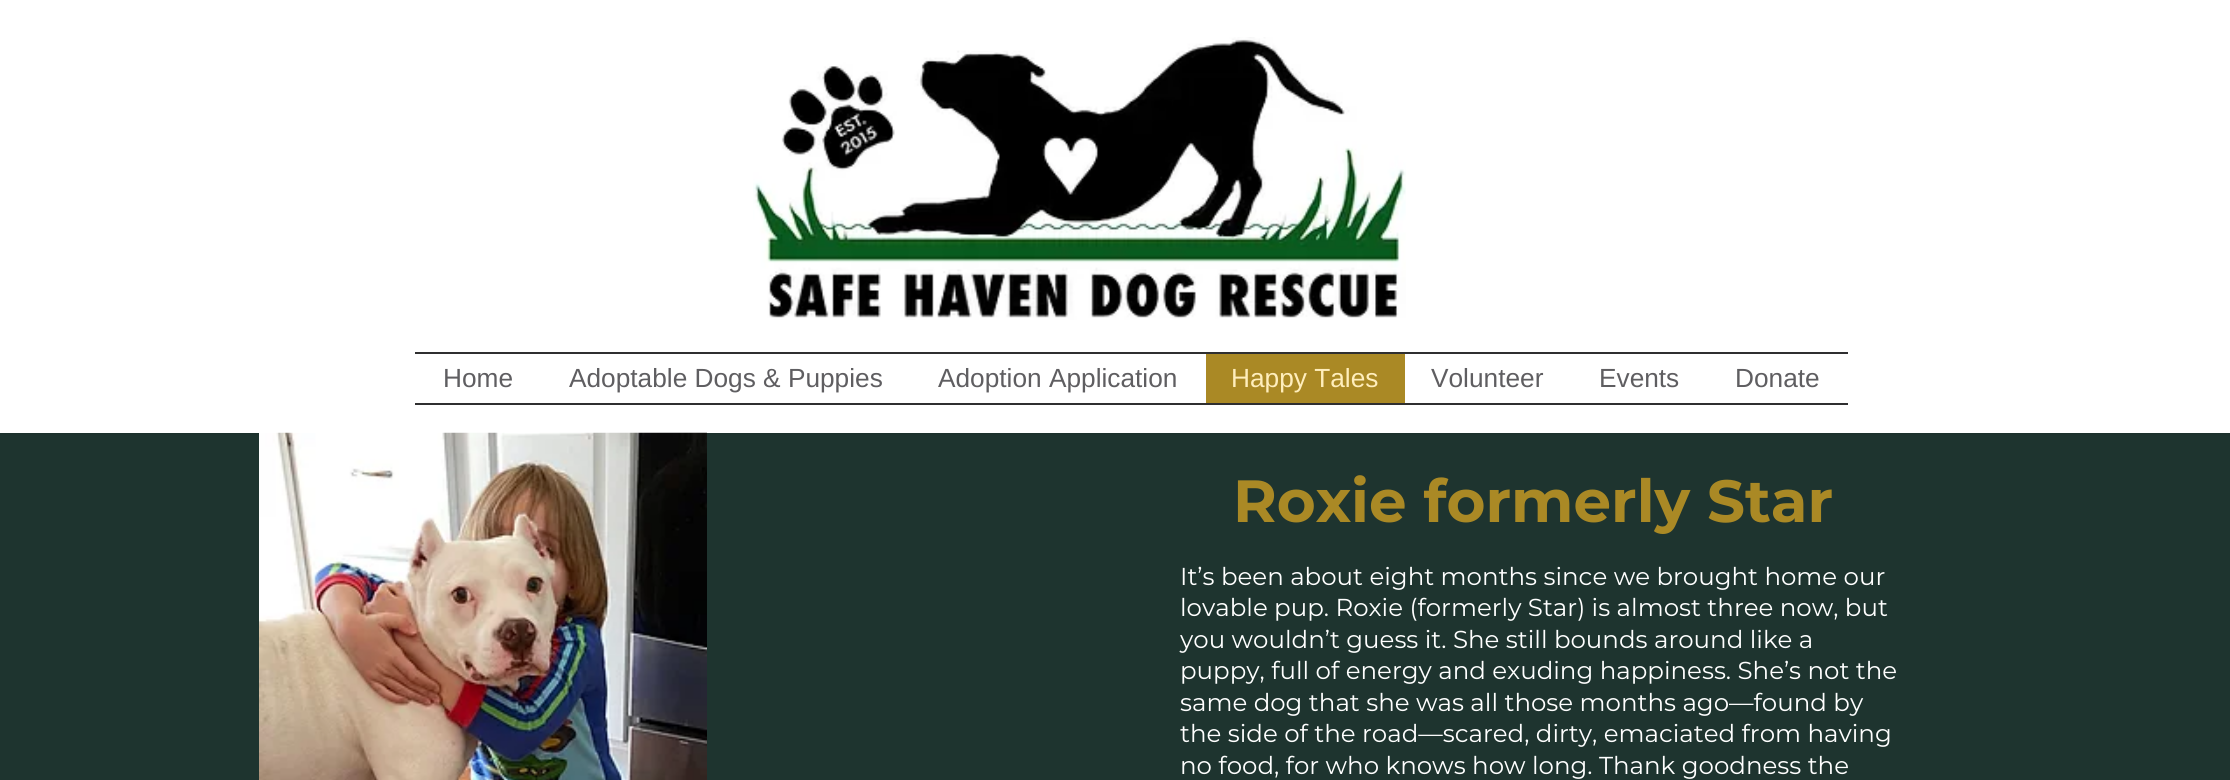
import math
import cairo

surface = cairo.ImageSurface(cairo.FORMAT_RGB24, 2230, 780)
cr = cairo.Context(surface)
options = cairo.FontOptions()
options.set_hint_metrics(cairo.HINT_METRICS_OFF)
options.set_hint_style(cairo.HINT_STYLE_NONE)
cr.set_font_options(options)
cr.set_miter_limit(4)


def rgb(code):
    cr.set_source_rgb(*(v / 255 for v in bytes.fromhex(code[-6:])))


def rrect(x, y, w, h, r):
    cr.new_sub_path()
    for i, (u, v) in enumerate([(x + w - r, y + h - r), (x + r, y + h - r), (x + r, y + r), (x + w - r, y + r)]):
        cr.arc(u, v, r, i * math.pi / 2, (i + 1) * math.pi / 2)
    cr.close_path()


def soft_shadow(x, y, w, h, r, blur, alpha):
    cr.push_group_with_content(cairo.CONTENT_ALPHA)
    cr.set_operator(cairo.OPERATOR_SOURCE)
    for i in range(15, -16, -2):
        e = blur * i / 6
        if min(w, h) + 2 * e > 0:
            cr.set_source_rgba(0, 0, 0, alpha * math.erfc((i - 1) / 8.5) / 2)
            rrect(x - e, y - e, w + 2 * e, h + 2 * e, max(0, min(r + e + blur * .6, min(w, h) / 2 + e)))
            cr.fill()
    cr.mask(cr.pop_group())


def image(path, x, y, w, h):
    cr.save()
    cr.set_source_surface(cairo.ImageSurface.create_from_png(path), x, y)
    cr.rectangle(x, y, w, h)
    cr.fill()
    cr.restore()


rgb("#1e342f")
cr.paint()
rgb("#000000")
soft_shadow(0, 0, 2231, 432, 0, 2.5, 0.2)
rgb("#ffffff")
cr.rectangle(0, 0, 2230, 433)
cr.fill()
image("img/1.png", 753, 37, 653, 283)
for x, y, w, h, color in [
    (415, 352, 1433, 2, "#2f2f30"),
    (415, 403, 1433, 2, "#2f2f30"),
    (1206, 354, 199, 49, "#aa8925"),
]:
    rgb(color)
    cr.rectangle(x, y, w, h)
    cr.fill()
image("img/2.png", 259, 432, 448, 348)
cr.select_font_face("Liberation Sans")
cr.set_font_size(26.25)
rgb("#5f5e61")
for x, y, s in [
    (443, 387, "Home"),
    (569, 387, "Adoptable Dogs & Puppies"),
    (938, 387, "Adoption Application"),
]:
    cr.move_to(x, y)
    cr.show_text(s)
rgb("#ffeebc")
cr.move_to(1231, 387)
cr.show_text("Happy Tales")
rgb("#5f5e61")
for x, y, s in [
    (1431, 387, "Volunteer"),
    (1599, 387, "Events"),
    (1735, 387, "Donate"),
]:
    cr.move_to(x, y)
    cr.show_text(s)
cr.select_font_face("Montserrat", cairo.FONT_SLANT_NORMAL, cairo.FONT_WEIGHT_BOLD)
cr.set_font_size(59.5)
rgb("#aa8925")
cr.move_to(1233, 522)
cr.show_text("Roxie formerly Star")
cr.select_font_face("Montserrat")
cr.set_font_size(24.5)
rgb("#ffffff")
for x, y, s in [
    (1180, 585, "It’s been about eight months since we brought home our"),
    (1180, 616, "lovable pup. Roxie (formerly Star) is almost three now, but"),
    (1180, 648, "you wouldn’t guess it. She still bounds around like a"),
    (1180, 679, "puppy, full of energy and exuding happiness. She’s not the"),
    (1180, 711, "same dog that she was all those months ago—found by"),
    (1180, 742, "the side of the road—scared, dirty, emaciated from having"),
    (1180, 774, "no food, for who knows how long. Thank goodness the"),
]:
    cr.move_to(x, y)
    cr.show_text(s)
surface.write_to_png("page.png")
